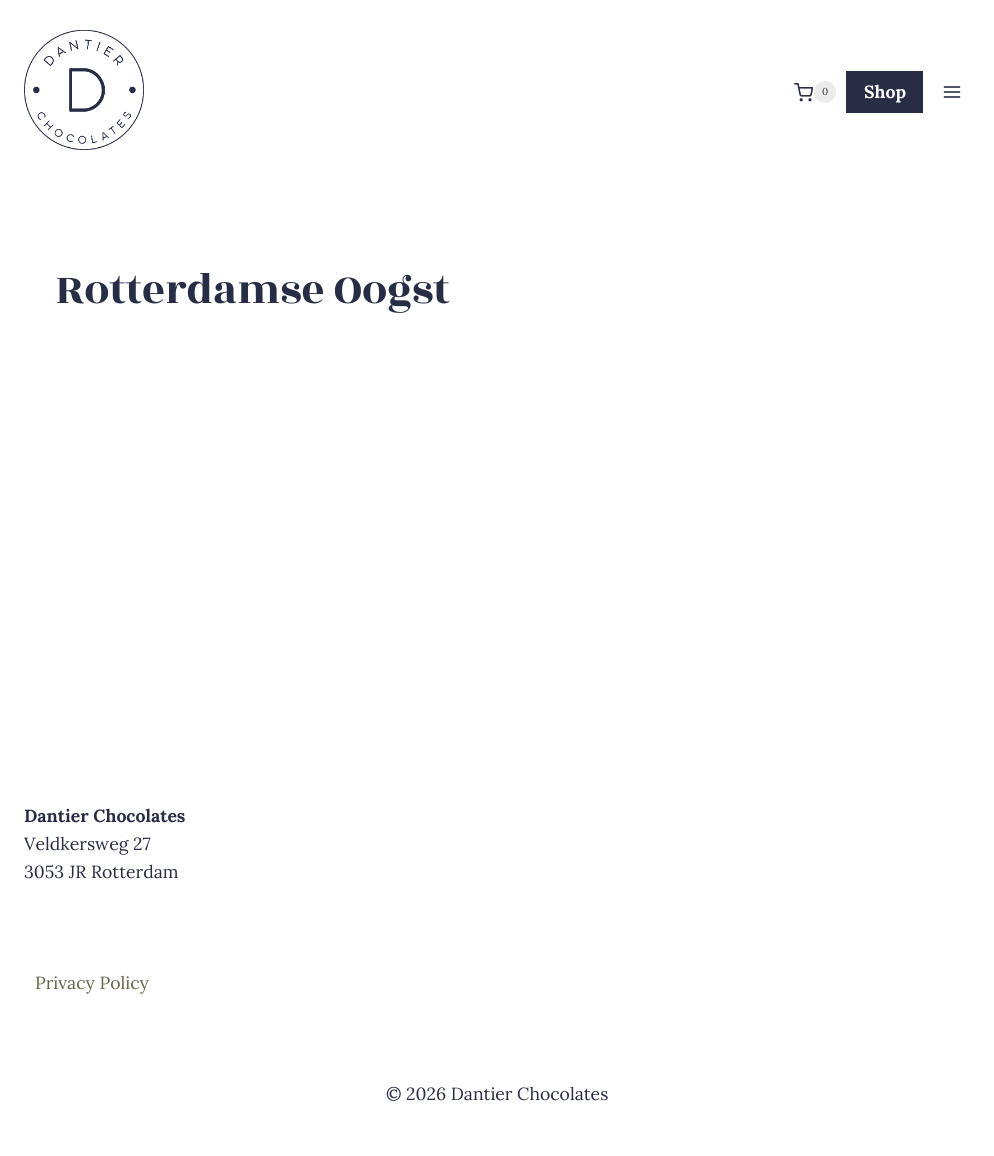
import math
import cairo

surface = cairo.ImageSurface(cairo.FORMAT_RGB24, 994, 1156)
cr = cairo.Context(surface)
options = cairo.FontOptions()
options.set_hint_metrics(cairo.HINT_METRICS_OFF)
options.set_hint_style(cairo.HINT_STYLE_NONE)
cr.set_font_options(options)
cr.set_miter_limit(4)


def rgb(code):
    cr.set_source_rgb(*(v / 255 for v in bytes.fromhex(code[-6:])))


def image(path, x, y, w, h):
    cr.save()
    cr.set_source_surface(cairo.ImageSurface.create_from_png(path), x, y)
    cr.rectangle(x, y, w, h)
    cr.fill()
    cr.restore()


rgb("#ffffff")
cr.paint()
image("img/1.png", 24, 30, 120, 120)
image("img/2.png", 794, 83, 19, 19)
rgb("#ebebeb")
cr.arc(825, 92, 11, 0, 2 * math.pi)
cr.fill()
rgb("#272d45")
cr.rectangle(846, 71, 77, 42)
cr.fill()
image("img/3.png", 943, 86, 18, 12)
cr.select_font_face("Lora")
cr.set_font_size(10)
rgb("#3c3837")
cr.move_to(822, 95)
cr.show_text("0")
cr.select_font_face("Lora", cairo.FONT_SLANT_NORMAL, cairo.FONT_WEIGHT_BOLD)
cr.set_font_size(17.6)
rgb("#ffffff")
cr.move_to(864, 98)
cr.show_text("Shop")
cr.select_font_face("Rozha One")
cr.set_font_size(44.75)
rgb("#272d45")
cr.move_to(56, 303)
cr.show_text("Rotterdamse Oogst")
cr.select_font_face("Lora", cairo.FONT_SLANT_NORMAL, cairo.FONT_WEIGHT_BOLD)
cr.set_font_size(17.6)
cr.move_to(24, 822)
cr.show_text("Dantier Chocolates")
cr.select_font_face("Lora")
cr.move_to(24, 850)
cr.show_text("Veldkersweg 27")
cr.move_to(24, 878)
cr.show_text("3053 JR Rotterdam")
rgb("#68624a")
cr.move_to(35, 989)
cr.show_text("Privacy Policy")
rgb("#272d45")
cr.move_to(386, 1100)
cr.show_text("© 2026 Dantier Chocolates")
surface.write_to_png("page.png")
